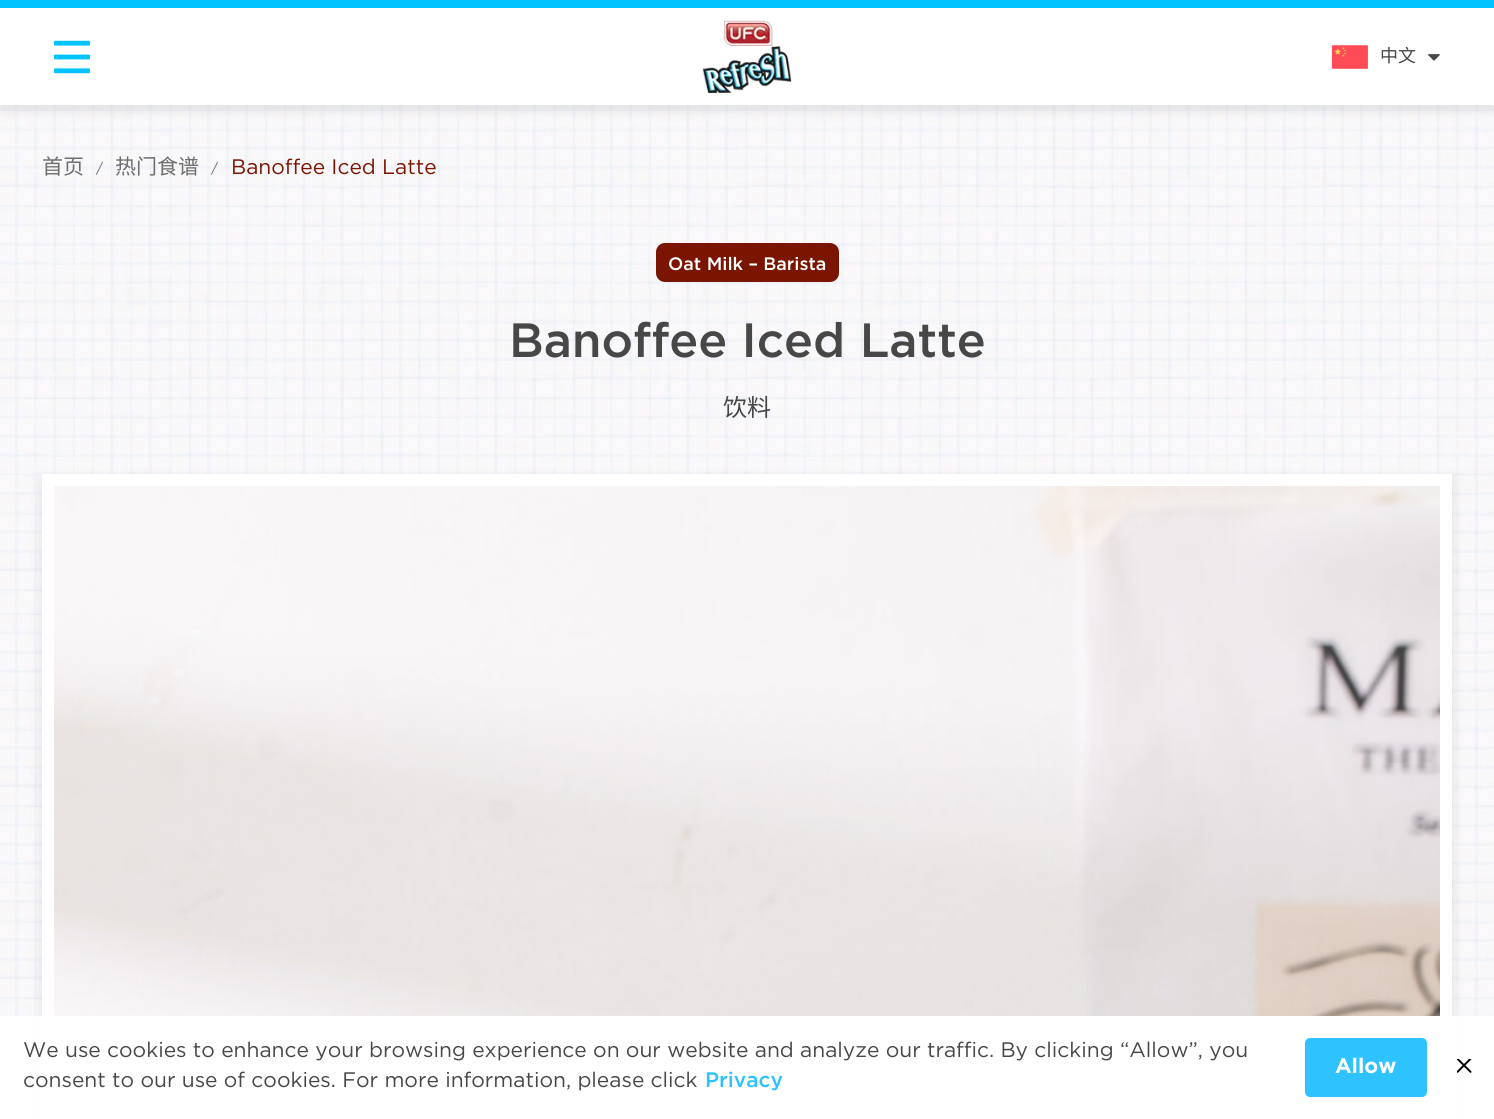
import math
import cairo

surface = cairo.ImageSurface(cairo.FORMAT_RGB24, 1494, 1119)
cr = cairo.Context(surface)
options = cairo.FontOptions()
options.set_hint_metrics(cairo.HINT_METRICS_OFF)
options.set_hint_style(cairo.HINT_STYLE_NONE)
cr.set_font_options(options)
cr.set_miter_limit(4)


def rgb(code):
    cr.set_source_rgb(*(v / 255 for v in bytes.fromhex(code[-6:])))


def rrect(x, y, w, h, r):
    cr.new_sub_path()
    for i, (u, v) in enumerate([(x + w - r, y + h - r), (x + r, y + h - r), (x + r, y + r), (x + w - r, y + r)]):
        cr.arc(u, v, r, i * math.pi / 2, (i + 1) * math.pi / 2)
    cr.close_path()


def soft_shadow(x, y, w, h, r, blur, alpha):
    cr.push_group_with_content(cairo.CONTENT_ALPHA)
    cr.set_operator(cairo.OPERATOR_SOURCE)
    for i in range(15, -16, -2):
        e = blur * i / 6
        if min(w, h) + 2 * e > 0:
            cr.set_source_rgba(0, 0, 0, alpha * math.erfc((i - 1) / 8.5) / 2)
            rrect(x - e, y - e, w + 2 * e, h + 2 * e, max(0, min(r + e + blur * .6, min(w, h) / 2 + e)))
            cr.fill()
    cr.mask(cr.pop_group())


def image(path, x, y, w, h):
    cr.save()
    cr.set_source_surface(cairo.ImageSurface.create_from_png(path), x, y)
    cr.rectangle(x, y, w, h)
    cr.fill()
    cr.restore()


rgb("#ffffff")
cr.paint()
image("img/1.png", 0, 105, 1494, 911)
rgb("#000000")
soft_shadow(0, 5, 1494, 105, 0, 6, 0.1)
rgb("#ffffff")
cr.rectangle(0, 8, 1494, 97)
cr.fill()
rgb("#00c3ff")
cr.rectangle(0, 0, 1494, 8)
cr.fill()
image("img/2.png", 54, 40, 36, 34)
image("img/3.png", 702, 20, 90, 73)
image("img/4.png", 1331, 45, 37, 24)
image("img/5.png", 1428, 54, 12, 7)
rgb("#7a1501")
rrect(656, 243, 183, 39, 9)
cr.fill()
rgb("#000000")
soft_shadow(42, 479, 1410, 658, 0, 6, 0.1)
rgb("#ffffff")
cr.rectangle(42, 474, 1410, 542)
cr.fill()
image("img/6.png", 54, 486, 1386, 530)
cr.rectangle(34, 1016, 1426, 103)
cr.fill()
rgb("#2ec3ff")
rrect(1305, 1038, 122, 59, 5)
cr.fill()
image("img/7.png", 1457, 1059, 15, 14)
cr.select_font_face("Noto Sans CJK SC")
cr.set_font_size(18)
rgb("#474747")
cr.move_to(1380, 62)
cr.show_text("中文")
cr.set_font_size(21)
rgb("#6e6e6e")
cr.move_to(42, 174)
cr.show_text("首页")
cr.select_font_face("Gotham")
cr.set_font_size(14)
cr.move_to(96, 173)
cr.show_text("/")
cr.select_font_face("Noto Sans CJK SC")
cr.set_font_size(21)
cr.move_to(115, 174)
cr.show_text("热门食谱")
cr.select_font_face("Gotham")
cr.set_font_size(14)
cr.move_to(211, 173)
cr.show_text("/")
cr.set_font_size(21)
rgb("#7a1501")
cr.move_to(231, 174)
cr.show_text("Banoffee Iced Latte")
cr.select_font_face("Gotham Medium")
cr.set_font_size(18)
rgb("#ffffff")
cr.move_to(668, 270)
cr.show_text("Oat Milk – Barista")
cr.set_font_size(48)
rgb("#474747")
cr.move_to(509, 357)
cr.show_text("Banoffee Iced Latte")
cr.select_font_face("Noto Sans CJK SC")
cr.set_font_size(24)
cr.move_to(723, 416)
cr.show_text("饮料")
cr.select_font_face("Gotham")
cr.set_font_size(21)
cr.move_to(23, 1057)
cr.show_text("We use cookies to enhance your browsing experience on our website and analyze our traffic. By clicking “Allow”, you")
cr.move_to(23, 1087)
cr.show_text("consent to our use of cookies. For more information, please click")
cr.select_font_face("Gotham Medium")
rgb("#2ec3ff")
cr.move_to(705, 1087)
cr.show_text("Privacy")
cr.select_font_face("Gotham", cairo.FONT_SLANT_NORMAL, cairo.FONT_WEIGHT_BOLD)
rgb("#ffffff")
cr.move_to(1335, 1073)
cr.show_text("Allow")
surface.write_to_png("page.png")
